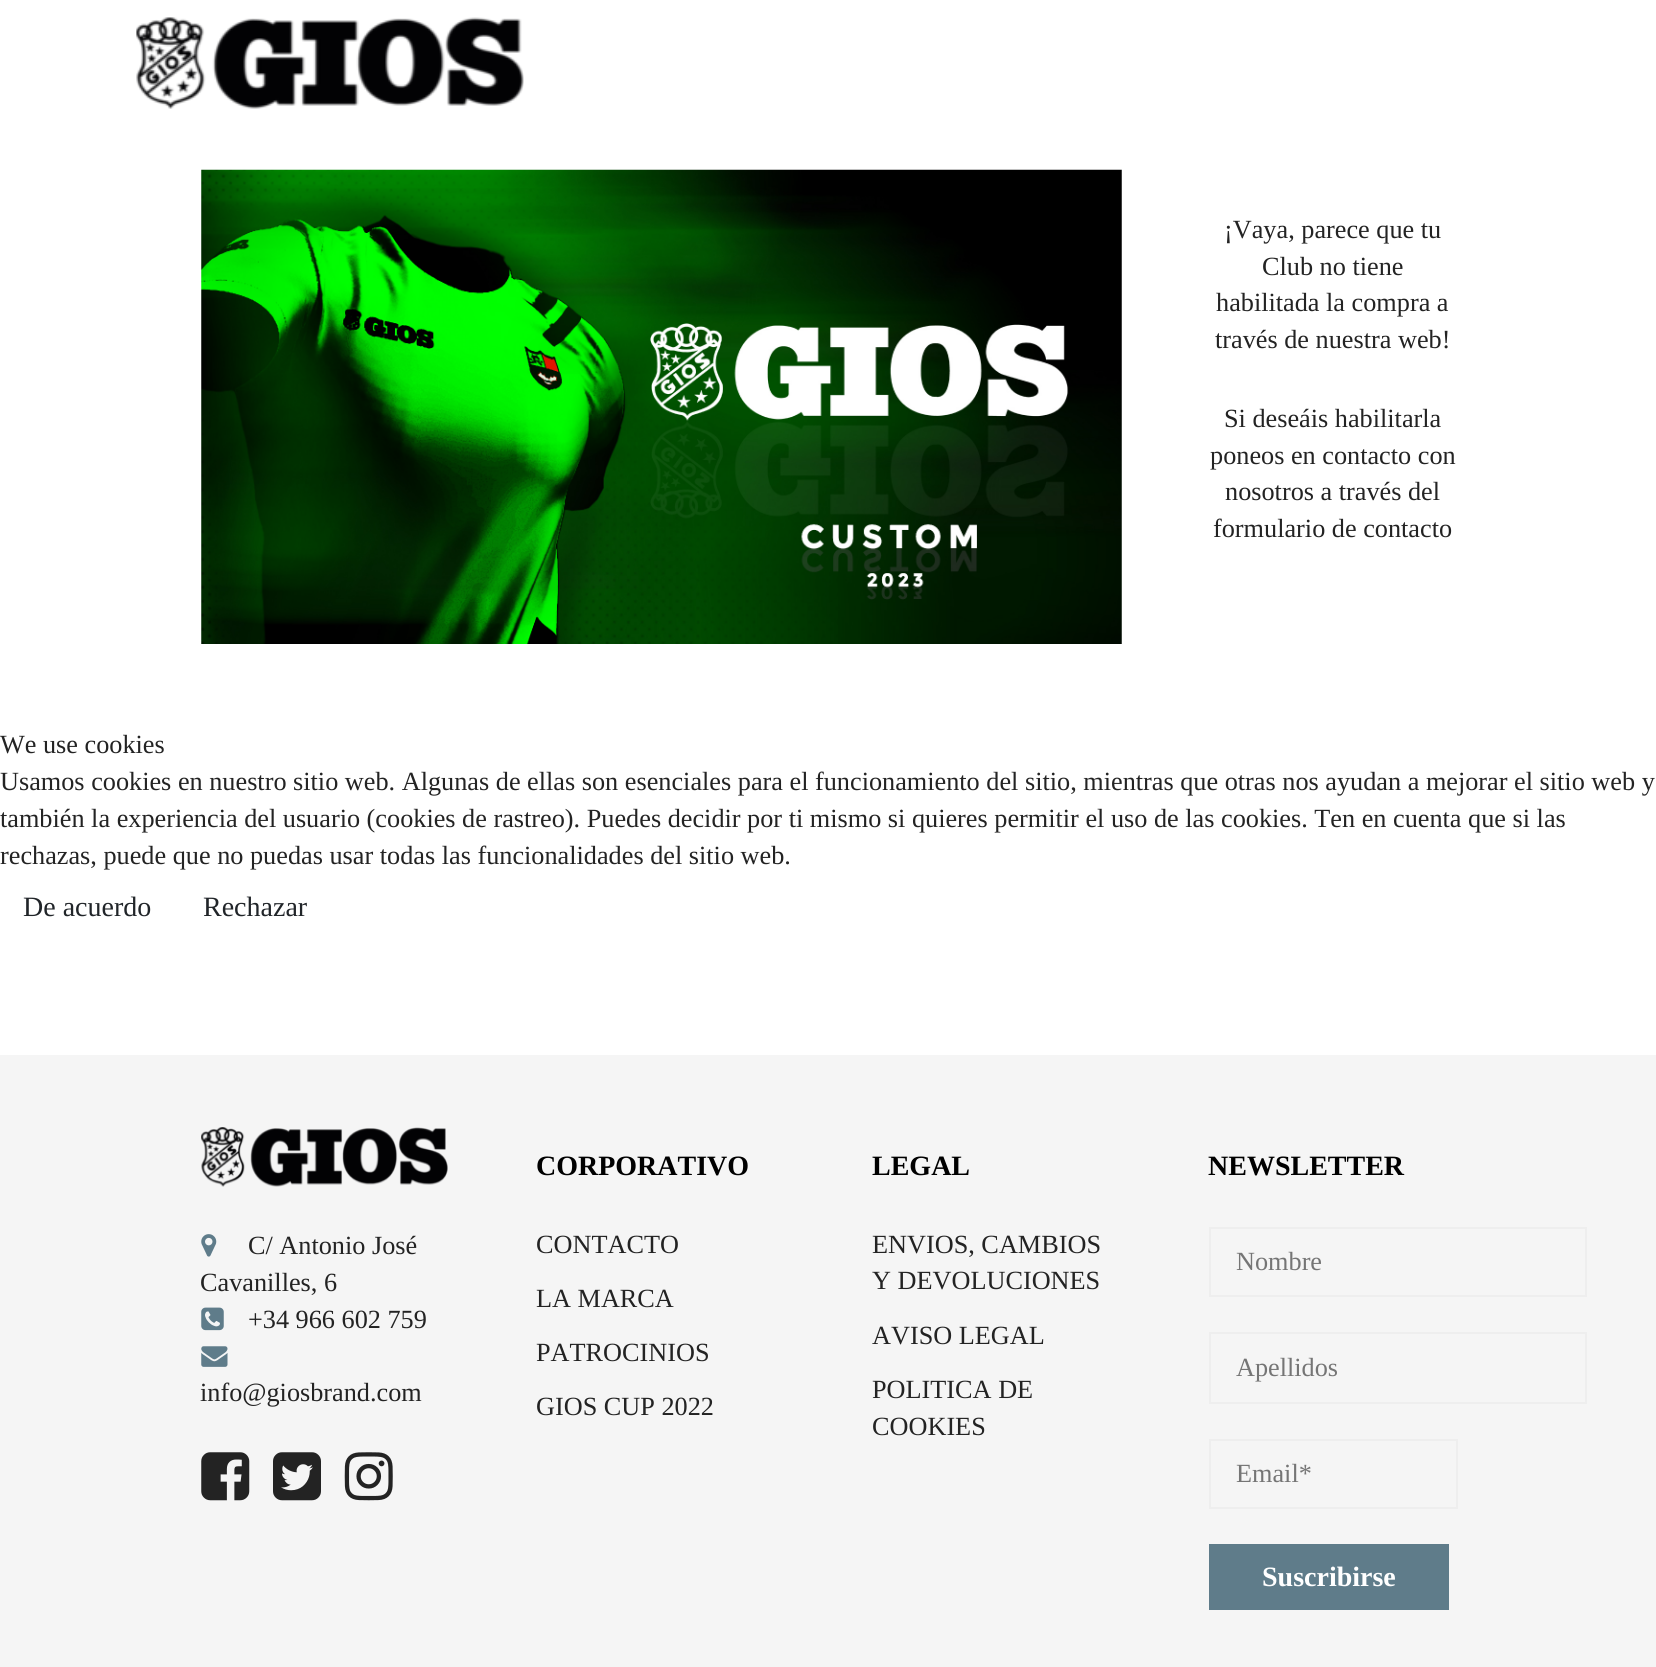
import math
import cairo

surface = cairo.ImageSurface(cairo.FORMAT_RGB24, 1656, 1667)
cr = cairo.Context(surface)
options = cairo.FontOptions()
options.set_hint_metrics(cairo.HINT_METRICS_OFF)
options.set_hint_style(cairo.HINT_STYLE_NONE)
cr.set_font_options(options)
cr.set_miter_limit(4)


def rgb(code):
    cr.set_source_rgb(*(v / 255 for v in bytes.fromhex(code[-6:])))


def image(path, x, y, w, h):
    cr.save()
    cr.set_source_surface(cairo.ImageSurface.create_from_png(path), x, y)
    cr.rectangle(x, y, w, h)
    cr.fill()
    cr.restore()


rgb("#ffffff")
cr.paint()
image("img/1.png", 136, 17, 388, 92)
image("img/2.png", 201, 169, 921, 475)
rgb("#f5f5f5")
cr.rectangle(0, 1055, 1656, 612)
cr.fill()
image("img/3.png", 201, 1127, 247, 60)
image("img/4.png", 201, 1234, 16, 23)
image("img/5.png", 201, 1307, 23, 24)
image("img/6.png", 201, 1346, 27, 21)
image("img/7.png", 201, 1452, 49, 49)
image("img/8.png", 273, 1452, 48, 49)
image("img/9.png", 344, 1452, 49, 49)
cr.rectangle(1210, 1228, 376, 68)
rgb("#eeeeee")
cr.stroke()
cr.rectangle(1210, 1333, 376, 70)
cr.stroke()
cr.rectangle(1210, 1440, 247, 68)
cr.stroke()
rgb("#5f7c8a")
cr.rectangle(1209, 1544, 240, 66)
cr.fill()
cr.select_font_face("Liberation Serif")
cr.set_font_size(26.25)
rgb("#232323")
for x, y, s in [
    (1224, 238, "¡Vaya, parece que tu"),
    (1262, 275, "Club no tiene"),
    (1216, 311, "habilitada la compra a"),
    (1215, 348, "través de nuestra web!"),
    (1224, 427, "Si deseáis habilitarla"),
    (1210, 464, "poneos en contacto con"),
    (1225, 500, "nosotros a través del"),
    (1213, 537, "formulario de contacto"),
    (248, 1254, "C/ Antonio José"),
    (200, 1291, "Cavanilles, 6"),
    (248, 1328, "+34 966 602 759"),
    (200, 1401, "info@giosbrand.com"),
]:
    cr.move_to(x, y)
    cr.show_text(s)
cr.select_font_face("Liberation Serif", cairo.FONT_SLANT_NORMAL, cairo.FONT_WEIGHT_BOLD)
cr.set_font_size(28)
rgb("#000000")
cr.move_to(536, 1175)
cr.show_text("CORPORATIVO")
cr.select_font_face("Liberation Serif")
cr.set_font_size(26.25)
rgb("#232323")
for x, y, s in [
    (536, 1253, "CONTACTO"),
    (536, 1307, "LA MARCA"),
    (536, 1361, "PATROCINIOS"),
    (536, 1415, "GIOS CUP 2022"),
]:
    cr.move_to(x, y)
    cr.show_text(s)
cr.select_font_face("Liberation Serif", cairo.FONT_SLANT_NORMAL, cairo.FONT_WEIGHT_BOLD)
cr.set_font_size(28)
rgb("#000000")
cr.move_to(872, 1175)
cr.show_text("LEGAL")
cr.select_font_face("Liberation Serif")
cr.set_font_size(26.25)
rgb("#232323")
for x, y, s in [
    (872, 1253, "ENVIOS, CAMBIOS"),
    (872, 1289, "Y DEVOLUCIONES"),
    (872, 1344, "AVISO LEGAL"),
    (872, 1398, "POLITICA DE"),
    (872, 1435, "COOKIES"),
]:
    cr.move_to(x, y)
    cr.show_text(s)
cr.select_font_face("Liberation Serif", cairo.FONT_SLANT_NORMAL, cairo.FONT_WEIGHT_BOLD)
cr.set_font_size(28)
rgb("#000000")
cr.move_to(1208, 1175)
cr.show_text("NEWSLETTER")
cr.select_font_face("Liberation Serif")
cr.set_font_size(26.25)
rgb("#757575")
for x, y, s in [
    (1236, 1270, "Nombre"),
    (1236, 1376, "Apellidos"),
    (1236, 1482, "Email*"),
]:
    cr.move_to(x, y)
    cr.show_text(s)
cr.select_font_face("Liberation Serif", cairo.FONT_SLANT_NORMAL, cairo.FONT_WEIGHT_BOLD)
cr.set_font_size(28)
rgb("#ffffff")
cr.move_to(1262, 1586)
cr.show_text("Suscribirse")
cr.select_font_face("Liberation Serif")
cr.set_font_size(26.25)
rgb("#232323")
for x, y, s in [
    (0, 753, "We use cookies"),
    (0, 790, "Usamos cookies en nuestro sitio web. Algunas de ellas son esenciales para el funcionamiento del sitio, mientras que otras nos ayudan a mejorar el sitio web y"),
    (0, 827, "también la experiencia del usuario (cookies de rastreo). Puedes decidir por ti mismo si quieres permitir el uso de las cookies. Ten en cuenta que si las"),
    (0, 864, "rechazas, puede que no puedas usar todas las funcionalidades del sitio web."),
]:
    cr.move_to(x, y)
    cr.show_text(s)
cr.set_font_size(28)
rgb("#212529")
cr.move_to(23, 916)
cr.show_text("De acuerdo")
cr.move_to(203, 916)
cr.show_text("Rechazar")
surface.write_to_png("page.png")
